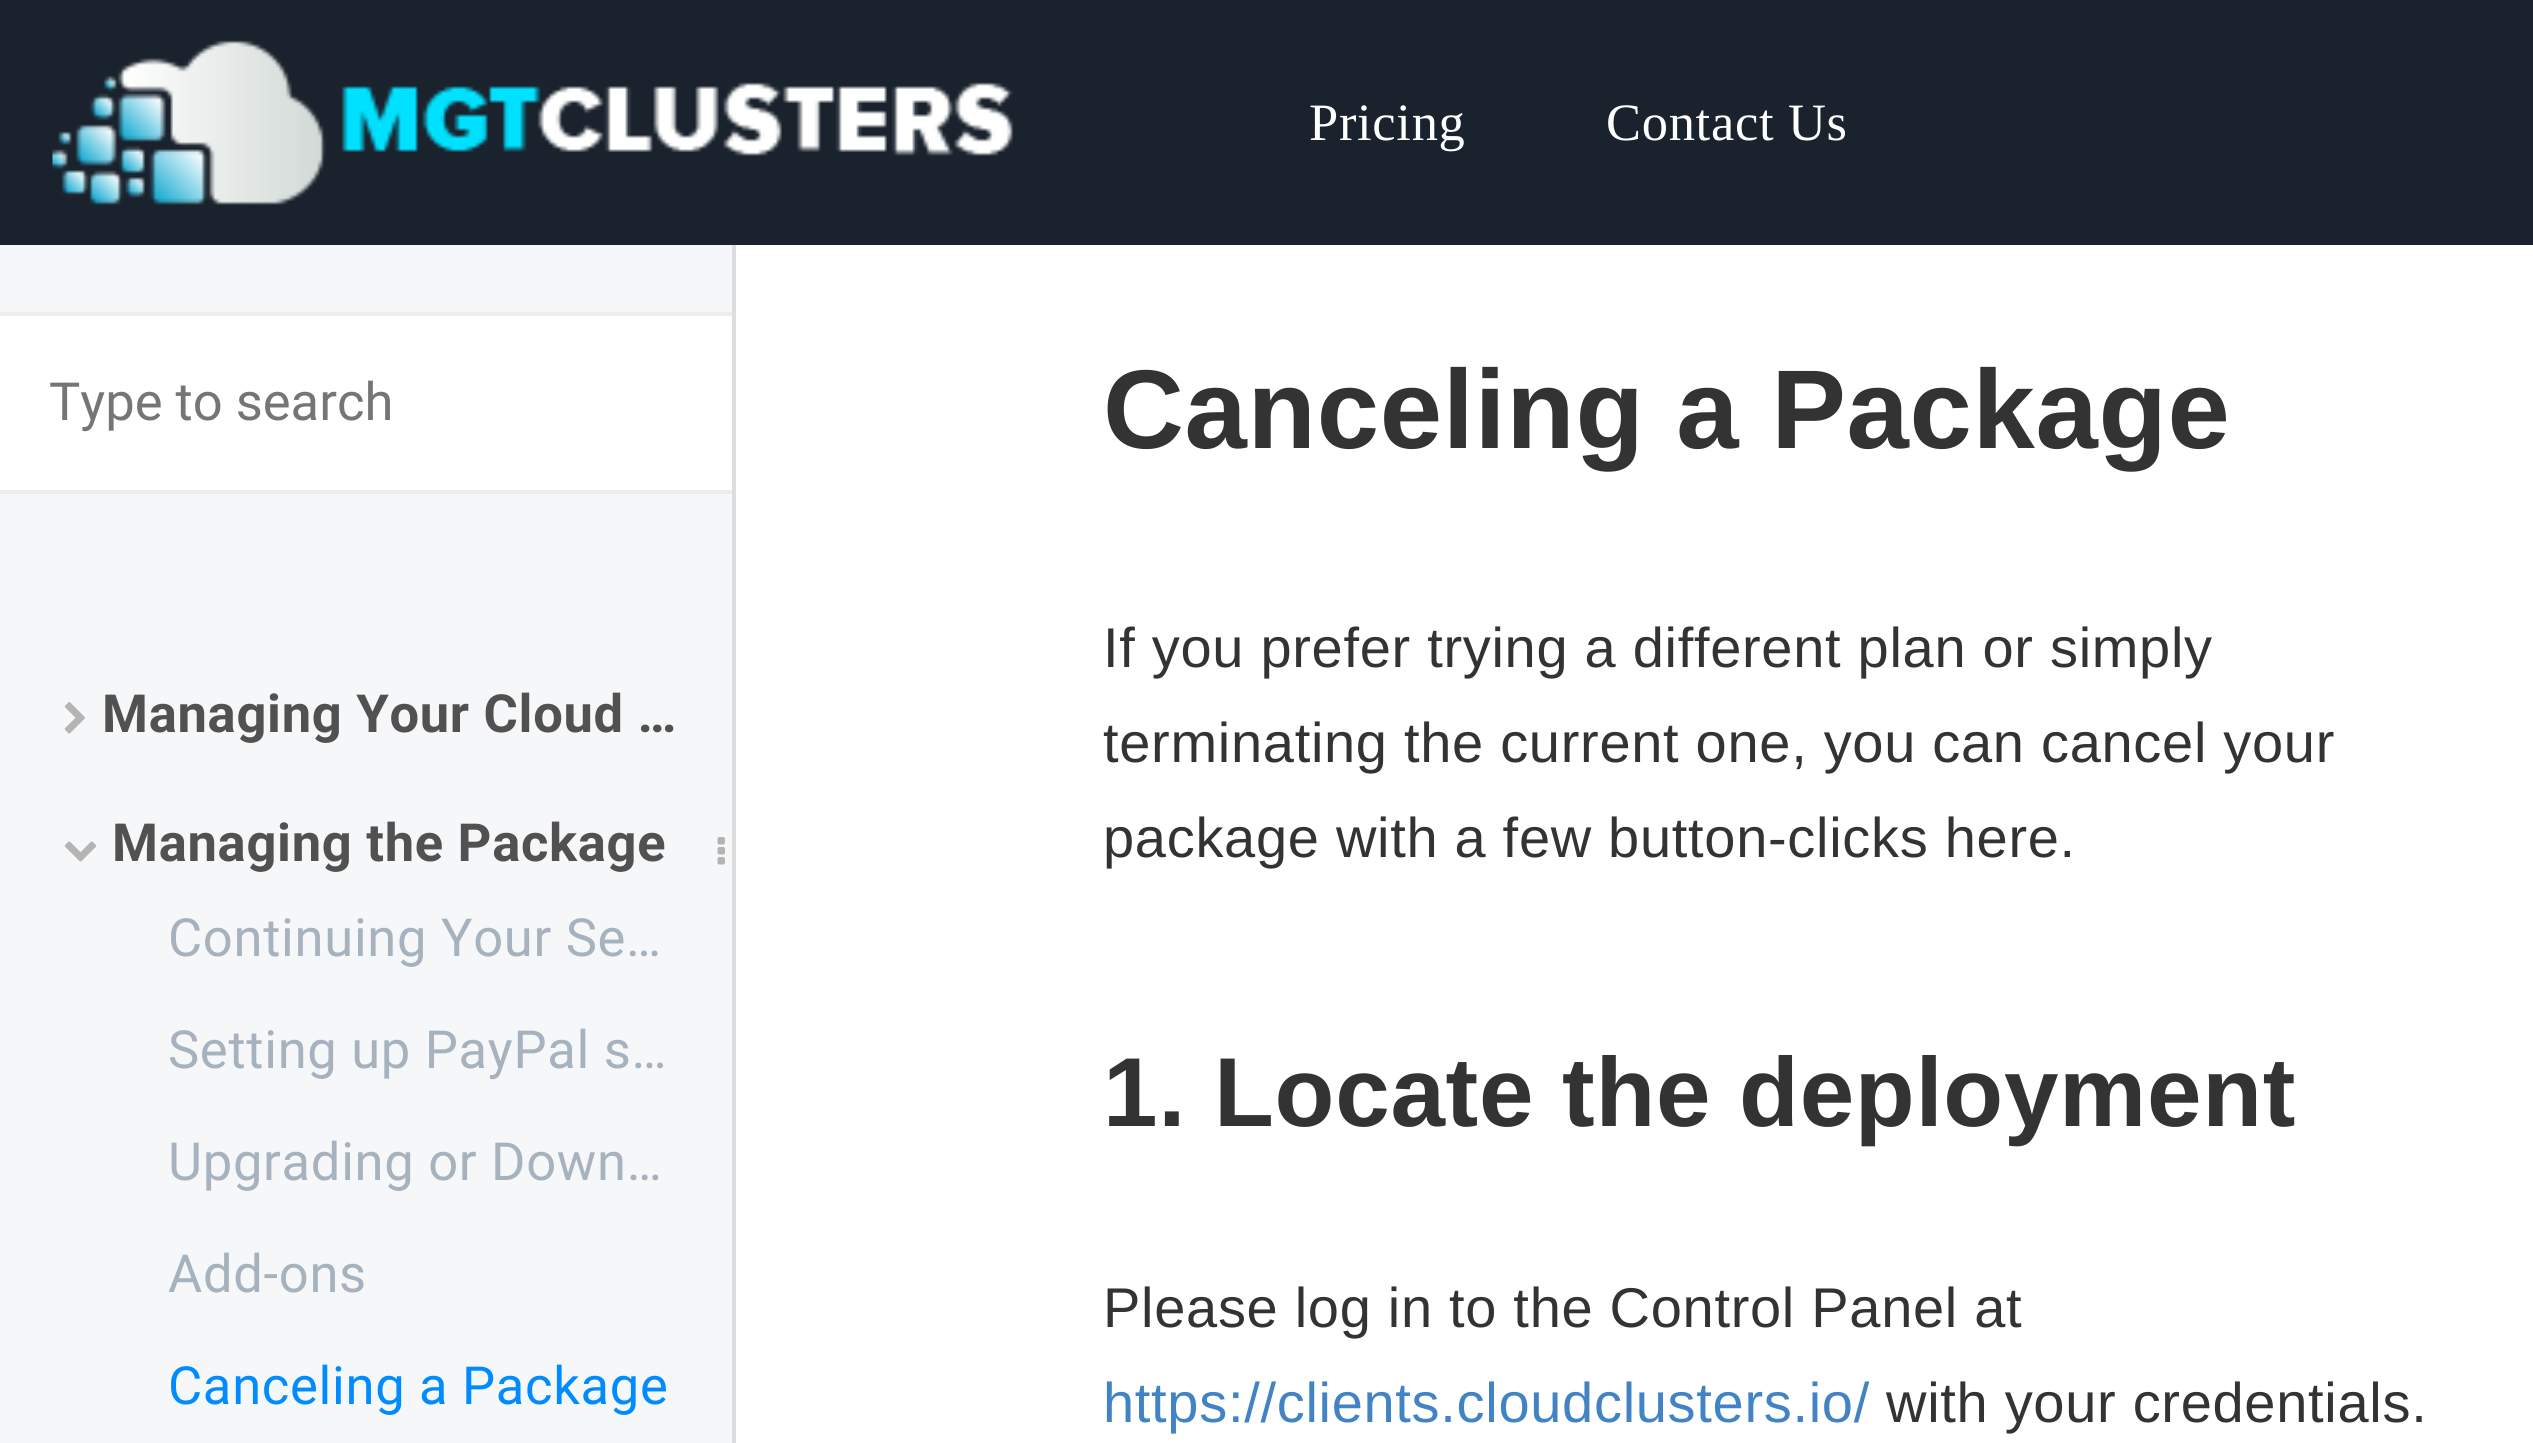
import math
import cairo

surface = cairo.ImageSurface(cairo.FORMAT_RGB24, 2533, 1443)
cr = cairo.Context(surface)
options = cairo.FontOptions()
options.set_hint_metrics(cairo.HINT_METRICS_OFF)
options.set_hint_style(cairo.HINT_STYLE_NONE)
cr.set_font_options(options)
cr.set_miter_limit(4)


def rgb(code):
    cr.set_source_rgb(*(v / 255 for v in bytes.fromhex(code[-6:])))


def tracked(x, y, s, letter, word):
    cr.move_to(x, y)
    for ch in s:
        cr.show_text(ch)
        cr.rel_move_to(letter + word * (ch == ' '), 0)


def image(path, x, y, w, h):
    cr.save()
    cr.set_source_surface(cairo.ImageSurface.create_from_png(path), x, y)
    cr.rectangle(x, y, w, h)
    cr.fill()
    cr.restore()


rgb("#ffffff")
cr.paint()
rgb("#1a232d")
cr.rectangle(0, 0, 2533, 245)
cr.fill()
image("img/1.png", 52, 40, 961, 165)
for x, y, w, h, color in [
    (0, 245, 732, 1198, "#f5f7f9"),
    (732, 245, 4, 1198, "#dddddd"),
    (0, 316, 732, 174, "#ffffff"),
    (0, 312, 732, 4, "#ededed"),
    (0, 490, 732, 4, "#ededed"),
]:
    rgb(color)
    cr.rectangle(x, y, w, h)
    cr.fill()
image("img/2.png", 64, 702, 21, 32)
image("img/3.png", 64, 841, 33, 21)
image("img/4.png", 717, 837, 8, 28)
cr.select_font_face("Liberation Serif")
cr.set_font_size(52.5)
rgb("#ffffff")
tracked(1309, 140, "Pricing", 0.7, 0)
tracked(1606, 140, "Contact Us", 0.7, 0)
cr.select_font_face("Roboto")
rgb("#757575")
cr.move_to(49, 420)
cr.show_text("Type to search")
cr.select_font_face("Roboto", cairo.FONT_SLANT_NORMAL, cairo.FONT_WEIGHT_BOLD)
rgb("#515151")
tracked(102, 732, "Managing Your Cloud …", 0.7, 0)
tracked(112, 861, "Managing the Package", 0.7, 0)
cr.select_font_face("Roboto")
rgb("#a6b2bd")
for x, y, s in [
    (168, 956, "Continuing Your Se…"),
    (168, 1068, "Setting up PayPal s…"),
    (168, 1180, "Upgrading or Down…"),
    (168, 1292, "Add-ons"),
]:
    tracked(x, y, s, 0.7, 0)
rgb("#008cff")
tracked(168, 1404, "Canceling a Package", 0.7, 0)
cr.select_font_face("Liberation Sans", cairo.FONT_SLANT_NORMAL, cairo.FONT_WEIGHT_BOLD)
cr.set_font_size(112)
rgb("#333333")
tracked(1103, 448, "Canceling a Package", 0.7, 0)
cr.select_font_face("Liberation Sans")
cr.set_font_size(56)
for x, y, s in [
    (1103, 667, "If you prefer trying a different plan or simply"),
    (1103, 762, "terminating the current one, you can cancel your"),
    (1103, 857, "package with a few button-clicks here."),
]:
    tracked(x, y, s, 0.7, 0)
cr.select_font_face("Liberation Sans", cairo.FONT_SLANT_NORMAL, cairo.FONT_WEIGHT_BOLD)
cr.set_font_size(98)
tracked(1103, 1126, "1. Locate the deployment", 0.7, 0)
cr.select_font_face("Liberation Sans")
cr.set_font_size(56)
tracked(1103, 1327, "Please log in to the Control Panel at", 0.7, 0)
rgb("#4183c4")
tracked(1103, 1422, "https://clients.cloudclusters.io/", 0.7, 0)
rgb("#333333")
tracked(1886, 1422, "with your credentials.", 0.7, 0)
surface.write_to_png("page.png")
